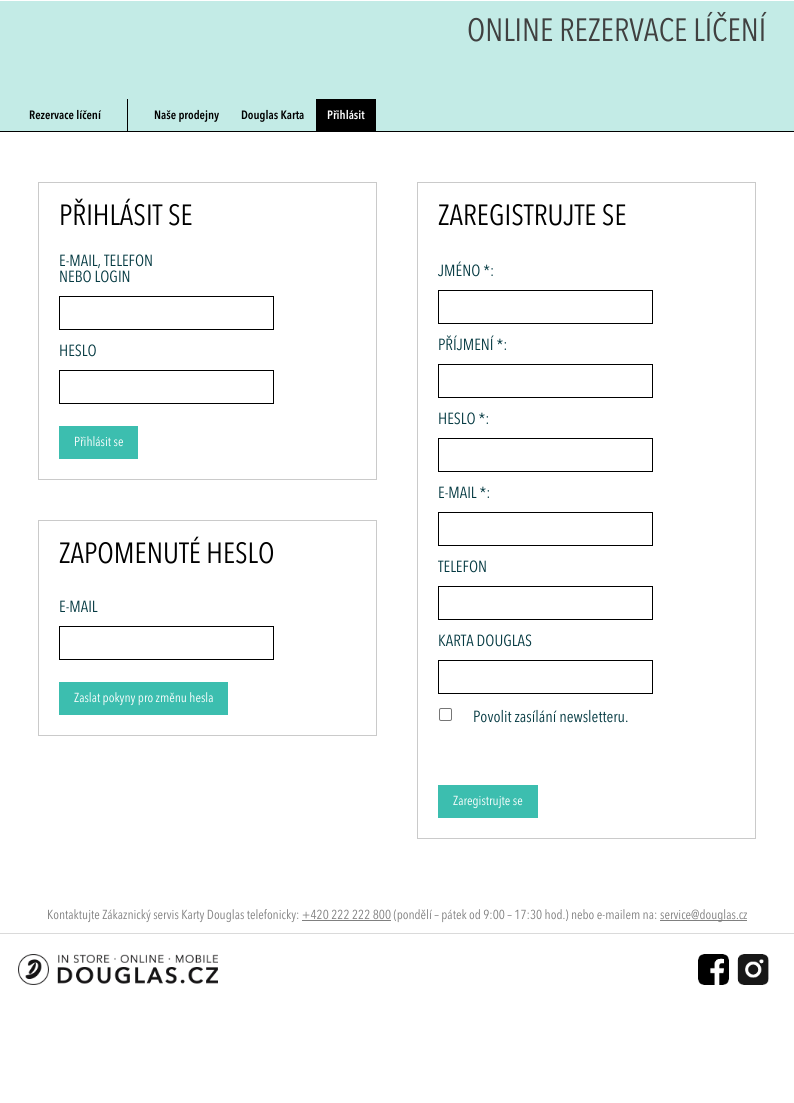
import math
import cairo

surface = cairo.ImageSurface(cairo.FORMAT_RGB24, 794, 1103)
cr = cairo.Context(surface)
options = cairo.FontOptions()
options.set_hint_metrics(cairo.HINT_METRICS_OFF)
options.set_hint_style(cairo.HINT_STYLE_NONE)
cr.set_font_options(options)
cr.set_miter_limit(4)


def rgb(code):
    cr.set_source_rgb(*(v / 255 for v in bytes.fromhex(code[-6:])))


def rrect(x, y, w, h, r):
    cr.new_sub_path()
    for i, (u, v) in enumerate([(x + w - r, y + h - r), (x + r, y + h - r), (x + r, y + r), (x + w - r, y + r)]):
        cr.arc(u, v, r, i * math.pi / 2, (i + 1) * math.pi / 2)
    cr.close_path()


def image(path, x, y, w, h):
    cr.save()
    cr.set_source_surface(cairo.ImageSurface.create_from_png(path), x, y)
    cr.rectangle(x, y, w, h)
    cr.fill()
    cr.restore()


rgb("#ffffff")
cr.paint()
for x, y, w, h, color in [
    (0, 1, 794, 130, "#c3ebe6"),
    (0, 131, 794, 1, "#000000"),
    (127, 99, 1, 32, "#000000"),
    (316, 99, 60, 32, "#000000"),
]:
    rgb(color)
    cr.rectangle(x, y, w, h)
    cr.fill()
cr.rectangle(38.5, 182.5, 338, 297)
rgb("#cacaca")
cr.set_line_width(1)
cr.stroke()
cr.rectangle(59.5, 296.5, 214, 33)
rgb("#000000")
cr.stroke()
cr.rectangle(59.5, 370.5, 214, 33)
cr.stroke()
rgb("#3cbeaf")
cr.rectangle(59, 426, 79, 33)
cr.fill()
cr.rectangle(38.5, 520.5, 338, 215)
rgb("#cacaca")
cr.stroke()
cr.rectangle(59.5, 626.5, 214, 33)
rgb("#000000")
cr.stroke()
rgb("#3cbeaf")
cr.rectangle(59, 682, 169, 33)
cr.fill()
cr.rectangle(417.5, 182.5, 338, 656)
rgb("#cacaca")
cr.stroke()
cr.rectangle(438.5, 290.5, 214, 33)
rgb("#000000")
cr.stroke()
cr.rectangle(438.5, 364.5, 214, 33)
cr.stroke()
cr.rectangle(438.5, 438.5, 214, 33)
cr.stroke()
cr.rectangle(438.5, 512.5, 214, 33)
cr.stroke()
cr.rectangle(438.5, 586.5, 214, 33)
cr.stroke()
cr.rectangle(438.5, 660.5, 214, 33)
cr.stroke()
rrect(439.5, 708.5, 12, 12, 1.5)
rgb("#767676")
cr.stroke()
for x, y, w, h, color in [
    (438, 785, 100, 33, "#3cbeaf"),
    (660, 920, 87, 1, "#808080"),
    (302, 920, 89, 1, "#808080"),
    (0, 933, 794, 1, "#dadada"),
]:
    rgb(color)
    cr.rectangle(x, y, w, h)
    cr.fill()
image("img/1.png", 18, 954, 200, 31)
image("img/2.png", 698, 954, 31, 31)
image("img/3.png", 737, 954, 32, 31)
cr.select_font_face("Avenir Next")
cr.set_font_size(32)
rgb("#404040")
cr.move_to(467, 41)
cr.show_text("ONLINE REZERVACE LÍČENÍ")
cr.select_font_face("Avenir Next", cairo.FONT_SLANT_NORMAL, cairo.FONT_WEIGHT_BOLD)
cr.set_font_size(12)
rgb("#000000")
for x, y, s in [
    (29, 119, "Rezervace líčení"),
    (154, 119, "Naše prodejny"),
    (241, 119, "Douglas Karta"),
]:
    cr.move_to(x, y)
    cr.show_text(s)
rgb("#ffffff")
cr.move_to(327, 119)
cr.show_text("Přihlásit")
cr.select_font_face("Avenir Next")
cr.set_font_size(29)
rgb("#000000")
cr.move_to(59, 225)
cr.show_text("PŘIHLÁSIT SE")
cr.set_font_size(16)
rgb("#053a42")
for x, y, s in [
    (59, 266, "E-MAIL, TELEFON"),
    (59, 282, "NEBO LOGIN"),
    (59, 356, "HESLO"),
]:
    cr.move_to(x, y)
    cr.show_text(s)
cr.set_font_size(13)
rgb("#ffffff")
cr.move_to(74, 446)
cr.show_text("Přihlásit se")
cr.set_font_size(29)
rgb("#000000")
cr.move_to(59, 563)
cr.show_text("ZAPOMENUTÉ HESLO")
cr.set_font_size(16)
rgb("#053a42")
cr.move_to(59, 612)
cr.show_text("E-MAIL")
cr.set_font_size(13)
rgb("#ffffff")
cr.move_to(74, 702)
cr.show_text("Zaslat pokyny pro změnu hesla")
cr.set_font_size(29)
rgb("#000000")
cr.move_to(438, 225)
cr.show_text("ZAREGISTRUJTE SE")
cr.set_font_size(16)
rgb("#053a42")
for x, y, s in [
    (438, 276, "JMÉNO *:"),
    (438, 350, "PŘÍJMENÍ *:"),
    (438, 424, "HESLO *:"),
    (438, 498, "E-MAIL *:"),
    (438, 572, "TELEFON"),
    (438, 646, "KARTA DOUGLAS"),
    (473, 722, "Povolit zasílání newsletteru."),
]:
    cr.move_to(x, y)
    cr.show_text(s)
cr.set_font_size(13)
rgb("#ffffff")
cr.move_to(453, 805)
cr.show_text("Zaregistrujte se")
rgb("#808080")
cr.move_to(47, 919)
cr.show_text("Kontaktujte Zákaznický servis Karty Douglas telefonicky: +420 222 222 800 (pondělí – pátek od 9:00 – 17:30 hod.) nebo e-mailem na:")
cr.move_to(660, 919)
cr.show_text("service@douglas.cz")
surface.write_to_png("page.png")
